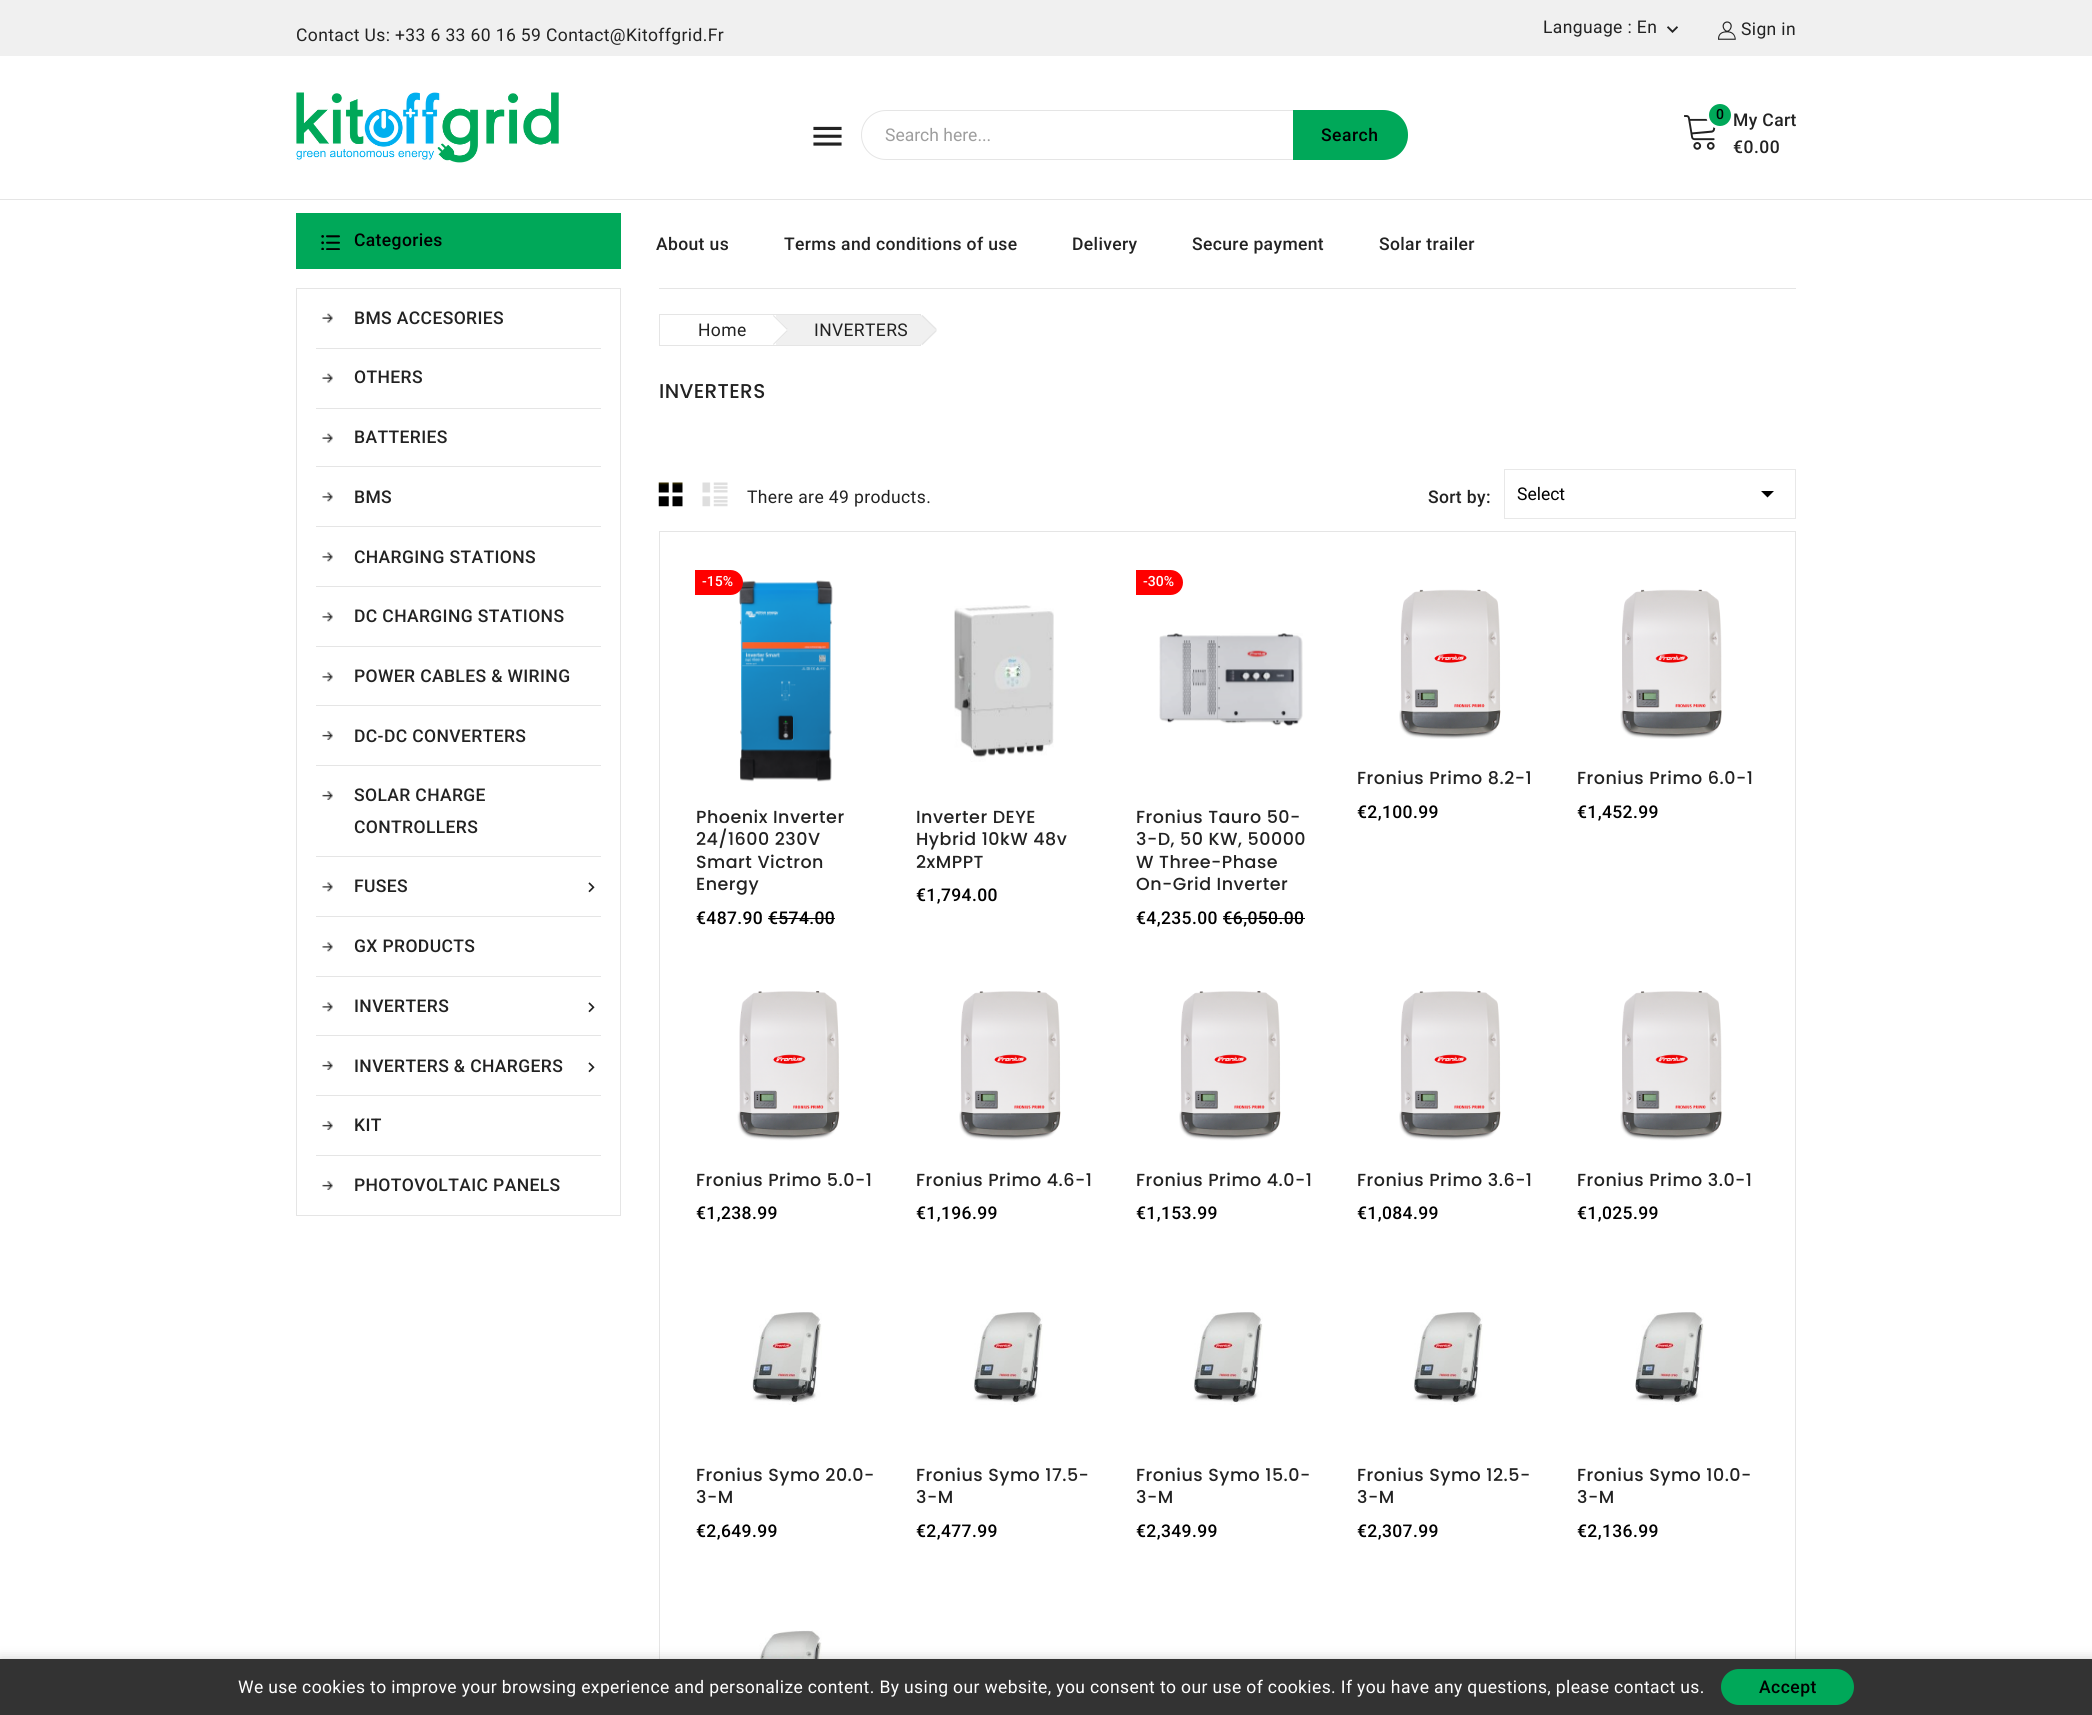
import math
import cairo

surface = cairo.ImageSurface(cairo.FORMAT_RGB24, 2092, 1715)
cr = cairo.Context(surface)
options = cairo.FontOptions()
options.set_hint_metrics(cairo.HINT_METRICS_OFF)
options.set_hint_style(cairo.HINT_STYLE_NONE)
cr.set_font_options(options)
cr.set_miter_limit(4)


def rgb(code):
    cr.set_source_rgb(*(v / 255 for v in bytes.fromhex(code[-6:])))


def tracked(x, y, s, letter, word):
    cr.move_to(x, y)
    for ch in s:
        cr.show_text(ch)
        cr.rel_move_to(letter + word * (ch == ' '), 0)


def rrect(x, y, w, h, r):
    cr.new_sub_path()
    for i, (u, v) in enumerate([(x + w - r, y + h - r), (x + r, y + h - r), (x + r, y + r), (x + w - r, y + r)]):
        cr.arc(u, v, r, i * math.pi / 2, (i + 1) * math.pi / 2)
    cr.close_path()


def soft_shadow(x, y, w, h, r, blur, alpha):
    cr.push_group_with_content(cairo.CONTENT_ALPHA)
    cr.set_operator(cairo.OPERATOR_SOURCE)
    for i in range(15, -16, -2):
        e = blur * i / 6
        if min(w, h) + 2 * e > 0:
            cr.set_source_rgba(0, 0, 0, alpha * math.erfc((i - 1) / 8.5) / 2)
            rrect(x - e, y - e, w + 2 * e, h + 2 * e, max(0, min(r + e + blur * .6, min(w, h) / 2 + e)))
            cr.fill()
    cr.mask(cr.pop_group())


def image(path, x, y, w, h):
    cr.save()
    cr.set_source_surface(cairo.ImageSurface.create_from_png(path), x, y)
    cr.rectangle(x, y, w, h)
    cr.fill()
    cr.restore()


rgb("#ffffff")
cr.paint()
rgb("#f0f0f0")
cr.rectangle(0, 0, 2092, 56)
cr.fill()
image("img/1.png", 1667, 26, 11, 7)
image("img/2.png", 1718, 21, 18, 19)
image("img/3.png", 296, 92, 263, 71)
image("img/4.png", 813, 126, 29, 20)
rrect(861.5, 110.5, 546, 49, 24.5)
rgb("#e5e5e5")
cr.set_line_width(1)
cr.stroke()
rgb("#00a859")
cr.new_path()
cr.move_to(1293, 110)
cr.line_to(1383, 110)
cr.curve_to(1397, 110, 1408, 121, 1408, 135)
cr.curve_to(1408, 149, 1397, 160, 1383, 160)
cr.line_to(1293, 160)
cr.close_path()
cr.fill()
image("img/5.png", 1684, 115, 32, 35)
cr.arc(1720, 115, 12.5, 0, 2 * math.pi)
cr.fill_preserve()
rgb("#ffffff")
cr.set_line_width(3)
cr.stroke()
rgb("#e5e5e5")
cr.rectangle(0, 199, 2092, 1)
cr.fill()
rgb("#00a859")
cr.rectangle(296, 213, 325, 56)
cr.fill()
image("img/6.png", 321, 235, 19, 15)
cr.rectangle(296.5, 288.5, 324, 927)
rgb("#e5e5e5")
cr.set_line_width(1)
cr.stroke()
image("img/7.png", 322, 313, 11, 10)
cr.rectangle(316, 348, 285, 1)
cr.fill()
image("img/7.png", 322, 373, 11, 10)
cr.rectangle(316, 408, 285, 1)
cr.fill()
image("img/7.png", 322, 433, 11, 10)
cr.rectangle(316, 466, 285, 1)
cr.fill()
image("img/8.png", 322, 492, 11, 10)
cr.rectangle(316, 526, 285, 1)
cr.fill()
image("img/8.png", 322, 552, 11, 10)
cr.rectangle(316, 586, 285, 1)
cr.fill()
image("img/8.png", 322, 612, 11, 10)
cr.rectangle(316, 646, 285, 1)
cr.fill()
image("img/8.png", 322, 672, 11, 10)
cr.rectangle(316, 705, 285, 1)
cr.fill()
image("img/9.png", 322, 731, 11, 9)
cr.rectangle(316, 765, 285, 1)
cr.fill()
image("img/9.png", 322, 791, 11, 9)
cr.rectangle(316, 856, 285, 1)
cr.fill()
image("img/8.png", 322, 882, 11, 10)
cr.rectangle(316, 916, 285, 1)
cr.fill()
image("img/10.png", 588, 882, 7, 11)
image("img/8.png", 322, 942, 11, 10)
cr.rectangle(316, 976, 285, 1)
cr.fill()
image("img/8.png", 322, 1002, 11, 10)
cr.rectangle(316, 1035, 285, 1)
cr.fill()
image("img/10.png", 588, 1002, 7, 11)
image("img/9.png", 322, 1061, 11, 9)
cr.rectangle(316, 1095, 285, 1)
cr.fill()
image("img/10.png", 588, 1062, 7, 11)
image("img/9.png", 322, 1121, 11, 9)
cr.rectangle(316, 1155, 285, 1)
cr.fill()
image("img/9.png", 322, 1181, 11, 9)
cr.rectangle(659, 288, 1137, 1)
cr.fill()
cr.rectangle(659.5, 314.5, 261, 31)
cr.stroke()
rgb("#f0f0f0")
cr.rectangle(776, 315, 144, 30)
cr.fill()
rgb("#ffffff")
cr.new_path()
cr.move_to(774.5, 316)
cr.line_to(787, 328)
cr.curve_to(788, 329, 788, 331, 787, 332)
cr.line_to(774.5, 344)
cr.curve_to(773.5, 345, 772, 345, 771, 344)
cr.line_to(758.5, 332)
cr.curve_to(757.5, 331, 757.5, 329, 758.5, 328)
cr.line_to(771, 316)
cr.curve_to(772, 315, 773.5, 315, 774.5, 316)
cr.close_path()
cr.fill()
rgb("#e5e5e5")
cr.new_path()
cr.move_to(773.5, 315)
cr.line_to(788, 329)
cr.line_to(787, 330)
cr.line_to(773, 316)
cr.close_path()
cr.move_to(787, 330)
cr.line_to(788, 331)
cr.line_to(773.5, 345)
cr.line_to(773, 344)
cr.close_path()
cr.fill()
image("img/11.png", 658, 482, 25, 25)
image("img/12.png", 702, 482, 26, 25)
cr.rectangle(1504.5, 469.5, 291, 49)
rgb("#e8e8e8")
cr.stroke()
rgb("#000000")
cr.new_path()
cr.move_to(1761, 491)
cr.line_to(1774, 491)
cr.line_to(1767.5, 497.5)
cr.close_path()
cr.fill()
cr.rectangle(659.5, 531.5, 1136, 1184)
rgb("#e5e5e5")
cr.stroke()
image("img/13.png", 739, 580, 94, 202)
rgb("#ff0000")
cr.new_path()
cr.move_to(695, 570)
cr.line_to(730.5, 570)
cr.curve_to(737.5, 570, 743, 575.5, 743, 582.5)
cr.curve_to(743, 589.5, 737.5, 595, 730.5, 595)
cr.line_to(695, 595)
cr.close_path()
cr.fill()
rgb("#000000")
cr.rectangle(768, 918, 67, 1)
cr.fill()
rgb("#ff0000")
cr.new_path()
cr.move_to(1136, 570)
cr.line_to(1170.5, 570)
cr.curve_to(1177.5, 570, 1183, 575.5, 1183, 582.5)
cr.curve_to(1183, 589.5, 1177.5, 595, 1170.5, 595)
cr.line_to(1136, 595)
cr.close_path()
cr.fill()
image("img/14.png", 1159, 633, 144, 94)
rgb("#000000")
cr.rectangle(1223, 918, 82, 1)
cr.fill()
image("img/15.png", 1399, 589, 102, 150)
image("img/16.png", 1620, 589, 102, 150)
image("img/17.png", 954, 605, 100, 157)
image("img/18.png", 737, 991, 103, 150)
image("img/19.png", 959, 991, 102, 150)
image("img/19.png", 1179, 991, 102, 150)
image("img/19.png", 1399, 991, 102, 150)
image("img/20.png", 1620, 991, 102, 150)
image("img/21.png", 752, 1312, 70, 93)
image("img/22.png", 973, 1312, 70, 93)
image("img/22.png", 1193, 1312, 70, 93)
image("img/22.png", 1413, 1312, 70, 93)
image("img/23.png", 1635, 1312, 69, 93)
image("img/24.png", 752, 1630, 70, 29)
rgb("#000000")
soft_shadow(0, 1659, 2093, 56, 0, 6, 0.2)
rgb("#333333")
cr.rectangle(0, 1659, 2092, 56)
cr.fill()
rgb("#00a859")
rrect(1721, 1669, 133, 36, 18)
cr.fill()
cr.select_font_face("Roboto")
cr.set_font_size(17.5)
rgb("#222222")
for x, y, s in [
    (296, 41, "Contact Us: +33 6 33 60 16 59 Contact@Kitoffgrid.Fr"),
    (1543, 33, "Language : En"),
    (1741, 35, "Sign in"),
]:
    tracked(x, y, s, 0.38, 0)
rgb("#9e9e9e")
cr.move_to(885, 141)
cr.show_text("Search here...")
cr.select_font_face("Roboto Medium")
rgb("#000000")
tracked(1321, 141, "Search", 0.5, 0)
cr.set_font_size(14)
tracked(1716, 119, "0", 0.38, 0)
cr.set_font_size(17.5)
rgb("#222222")
tracked(1733, 126, "My Cart", 0.38, 0)
tracked(1733, 153, "€0.00", 0.5, 0)
for x, y, s in [
    (656, 250, "About us"),
    (784, 250, "Terms and conditions of use"),
    (1072, 250, "Delivery"),
    (1192, 250, "Secure payment"),
    (1379, 250, "Solar trailer"),
]:
    tracked(x, y, s, 0.38, 0)
rgb("#000000")
tracked(354, 246, "Categories", 0.38, 0)
rgb("#222222")
for x, y, s in [
    (354, 324, "BMS ACCESORIES"),
    (354, 383, "OTHERS"),
    (354, 443, "BATTERIES"),
    (354, 503, "BMS"),
    (354, 563, "CHARGING STATIONS"),
    (354, 622, "DC CHARGING STATIONS"),
    (354, 682, "POWER CABLES & WIRING"),
    (354, 742, "DC-DC CONVERTERS"),
    (354, 801, "SOLAR CHARGE"),
    (354, 833, "CONTROLLERS"),
    (354, 892, "FUSES"),
    (354, 952, "GX PRODUCTS"),
    (354, 1012, "INVERTERS"),
    (354, 1072, "INVERTERS & CHARGERS"),
    (354, 1131, "KIT"),
    (354, 1191, "PHOTOVOLTAIC PANELS"),
]:
    tracked(x, y, s, 0.38, 0)
cr.select_font_face("Roboto")
tracked(698, 336, "Home", 0.38, 0)
tracked(814, 336, "INVERTERS", 0.38, 0)
rgb("#f0f0f0")
cr.new_path()
cr.move_to(923.5, 316)
cr.line_to(936, 328)
cr.curve_to(937, 329, 937, 331, 936, 332)
cr.line_to(923.5, 344)
cr.curve_to(922.5, 345, 921, 345, 920, 344)
cr.line_to(907.5, 332)
cr.curve_to(906.5, 331, 906.5, 329, 907.5, 328)
cr.line_to(920, 316)
cr.curve_to(921, 315, 922.5, 315, 923.5, 316)
cr.close_path()
cr.fill()
rgb("#e5e5e5")
cr.new_path()
cr.move_to(922.5, 315)
cr.line_to(936.5, 329)
cr.line_to(936, 330)
cr.line_to(921.5, 316)
cr.close_path()
cr.move_to(936, 330)
cr.line_to(936.5, 331)
cr.line_to(922.5, 345)
cr.line_to(921.5, 344)
cr.close_path()
cr.fill()
cr.select_font_face("Poppins Medium")
cr.set_font_size(20)
rgb("#222222")
tracked(659, 398, "INVERTERS", 0.38, 0)
cr.select_font_face("Roboto")
cr.set_font_size(17.5)
tracked(747, 503, "There are 49 products.", 0.38, 0)
cr.select_font_face("Roboto Medium")
tracked(1428, 503, "Sort by:", 0.38, 0)
cr.select_font_face("Roboto")
rgb("#000000")
cr.move_to(1517, 500)
cr.show_text("Select")
cr.select_font_face("Roboto Medium")
cr.set_font_size(14)
rgb("#ffffff")
cr.move_to(702, 586)
cr.show_text("-15%")
cr.select_font_face("Poppins Medium")
cr.set_font_size(17.5)
rgb("#222222")
for x, y, s in [
    (696, 823, "Phoenix Inverter"),
    (696, 845, "24/1600 230V"),
    (696, 868, "Smart Victron"),
    (696, 890, "Energy"),
]:
    tracked(x, y, s, 0.5, 0)
cr.select_font_face("Roboto Medium")
rgb("#000000")
tracked(696, 924, "€487.90 €574.00", 0.38, 0)
cr.set_font_size(14)
rgb("#ffffff")
cr.move_to(1143, 586)
cr.show_text("-30%")
cr.select_font_face("Poppins Medium")
cr.set_font_size(17.5)
rgb("#222222")
for x, y, s in [
    (1136, 823, "Fronius Tauro 50-"),
    (1136, 845, "3-D, 50 KW, 50000"),
    (1136, 868, "W Three-Phase"),
    (1136, 890, "On-Grid Inverter"),
]:
    tracked(x, y, s, 0.5, 0)
cr.select_font_face("Roboto Medium")
rgb("#000000")
tracked(1136, 924, "€4,235.00 €6,050.00", 0.38, 0)
cr.select_font_face("Poppins Medium")
rgb("#222222")
tracked(1357, 784, "Fronius Primo 8.2-1", 0.5, 0)
cr.select_font_face("Roboto Medium")
rgb("#000000")
tracked(1357, 818, "€2,100.99", 0.38, 0)
cr.select_font_face("Poppins Medium")
rgb("#222222")
tracked(1577, 784, "Fronius Primo 6.0-1", 0.5, 0)
cr.select_font_face("Roboto Medium")
rgb("#000000")
tracked(1577, 818, "€1,452.99", 0.38, 0)
cr.select_font_face("Poppins Medium")
rgb("#222222")
for x, y, s in [
    (916, 823, "Inverter DEYE"),
    (916, 845, "Hybrid 10kW 48v"),
    (916, 868, "2xMPPT"),
]:
    tracked(x, y, s, 0.5, 0)
cr.select_font_face("Roboto Medium")
rgb("#000000")
tracked(916, 901, "€1,794.00", 0.38, 0)
cr.select_font_face("Poppins Medium")
rgb("#222222")
tracked(696, 1186, "Fronius Primo 5.0-1", 0.5, 0)
cr.select_font_face("Roboto Medium")
rgb("#000000")
tracked(696, 1219, "€1,238.99", 0.38, 0)
cr.select_font_face("Poppins Medium")
rgb("#222222")
tracked(916, 1186, "Fronius Primo 4.6-1", 0.5, 0)
cr.select_font_face("Roboto Medium")
rgb("#000000")
tracked(916, 1219, "€1,196.99", 0.38, 0)
cr.select_font_face("Poppins Medium")
rgb("#222222")
tracked(1136, 1186, "Fronius Primo 4.0-1", 0.5, 0)
cr.select_font_face("Roboto Medium")
rgb("#000000")
tracked(1136, 1219, "€1,153.99", 0.38, 0)
cr.select_font_face("Poppins Medium")
rgb("#222222")
tracked(1357, 1186, "Fronius Primo 3.6-1", 0.5, 0)
cr.select_font_face("Roboto Medium")
rgb("#000000")
tracked(1357, 1219, "€1,084.99", 0.38, 0)
cr.select_font_face("Poppins Medium")
rgb("#222222")
tracked(1577, 1186, "Fronius Primo 3.0-1", 0.5, 0)
cr.select_font_face("Roboto Medium")
rgb("#000000")
tracked(1577, 1219, "€1,025.99", 0.38, 0)
cr.select_font_face("Poppins Medium")
rgb("#222222")
tracked(696, 1481, "Fronius Symo 20.0-", 0.5, 0)
tracked(696, 1503, "3-M", 0.5, 0)
cr.select_font_face("Roboto Medium")
rgb("#000000")
tracked(696, 1537, "€2,649.99", 0.38, 0)
cr.select_font_face("Poppins Medium")
rgb("#222222")
tracked(916, 1481, "Fronius Symo 17.5-", 0.5, 0)
tracked(916, 1503, "3-M", 0.5, 0)
cr.select_font_face("Roboto Medium")
rgb("#000000")
tracked(916, 1537, "€2,477.99", 0.38, 0)
cr.select_font_face("Poppins Medium")
rgb("#222222")
tracked(1136, 1481, "Fronius Symo 15.0-", 0.5, 0)
tracked(1136, 1503, "3-M", 0.5, 0)
cr.select_font_face("Roboto Medium")
rgb("#000000")
tracked(1136, 1537, "€2,349.99", 0.38, 0)
cr.select_font_face("Poppins Medium")
rgb("#222222")
tracked(1357, 1481, "Fronius Symo 12.5-", 0.5, 0)
tracked(1357, 1503, "3-M", 0.5, 0)
cr.select_font_face("Roboto Medium")
rgb("#000000")
tracked(1357, 1537, "€2,307.99", 0.38, 0)
cr.select_font_face("Poppins Medium")
rgb("#222222")
tracked(1577, 1481, "Fronius Symo 10.0-", 0.5, 0)
tracked(1577, 1503, "3-M", 0.5, 0)
cr.select_font_face("Roboto Medium")
rgb("#000000")
tracked(1577, 1537, "€2,136.99", 0.38, 0)
cr.select_font_face("Roboto")
rgb("#ffffff")
tracked(238, 1693, "We use cookies to improve your browsing experience and personalize content. By using our website, you consent to our use of cookies. If you have any questions, please contact us.", 0.38, 0)
cr.select_font_face("Roboto Medium")
rgb("#000000")
tracked(1759, 1693, "Accept", 0.5, 0)
surface.write_to_png("page.png")
